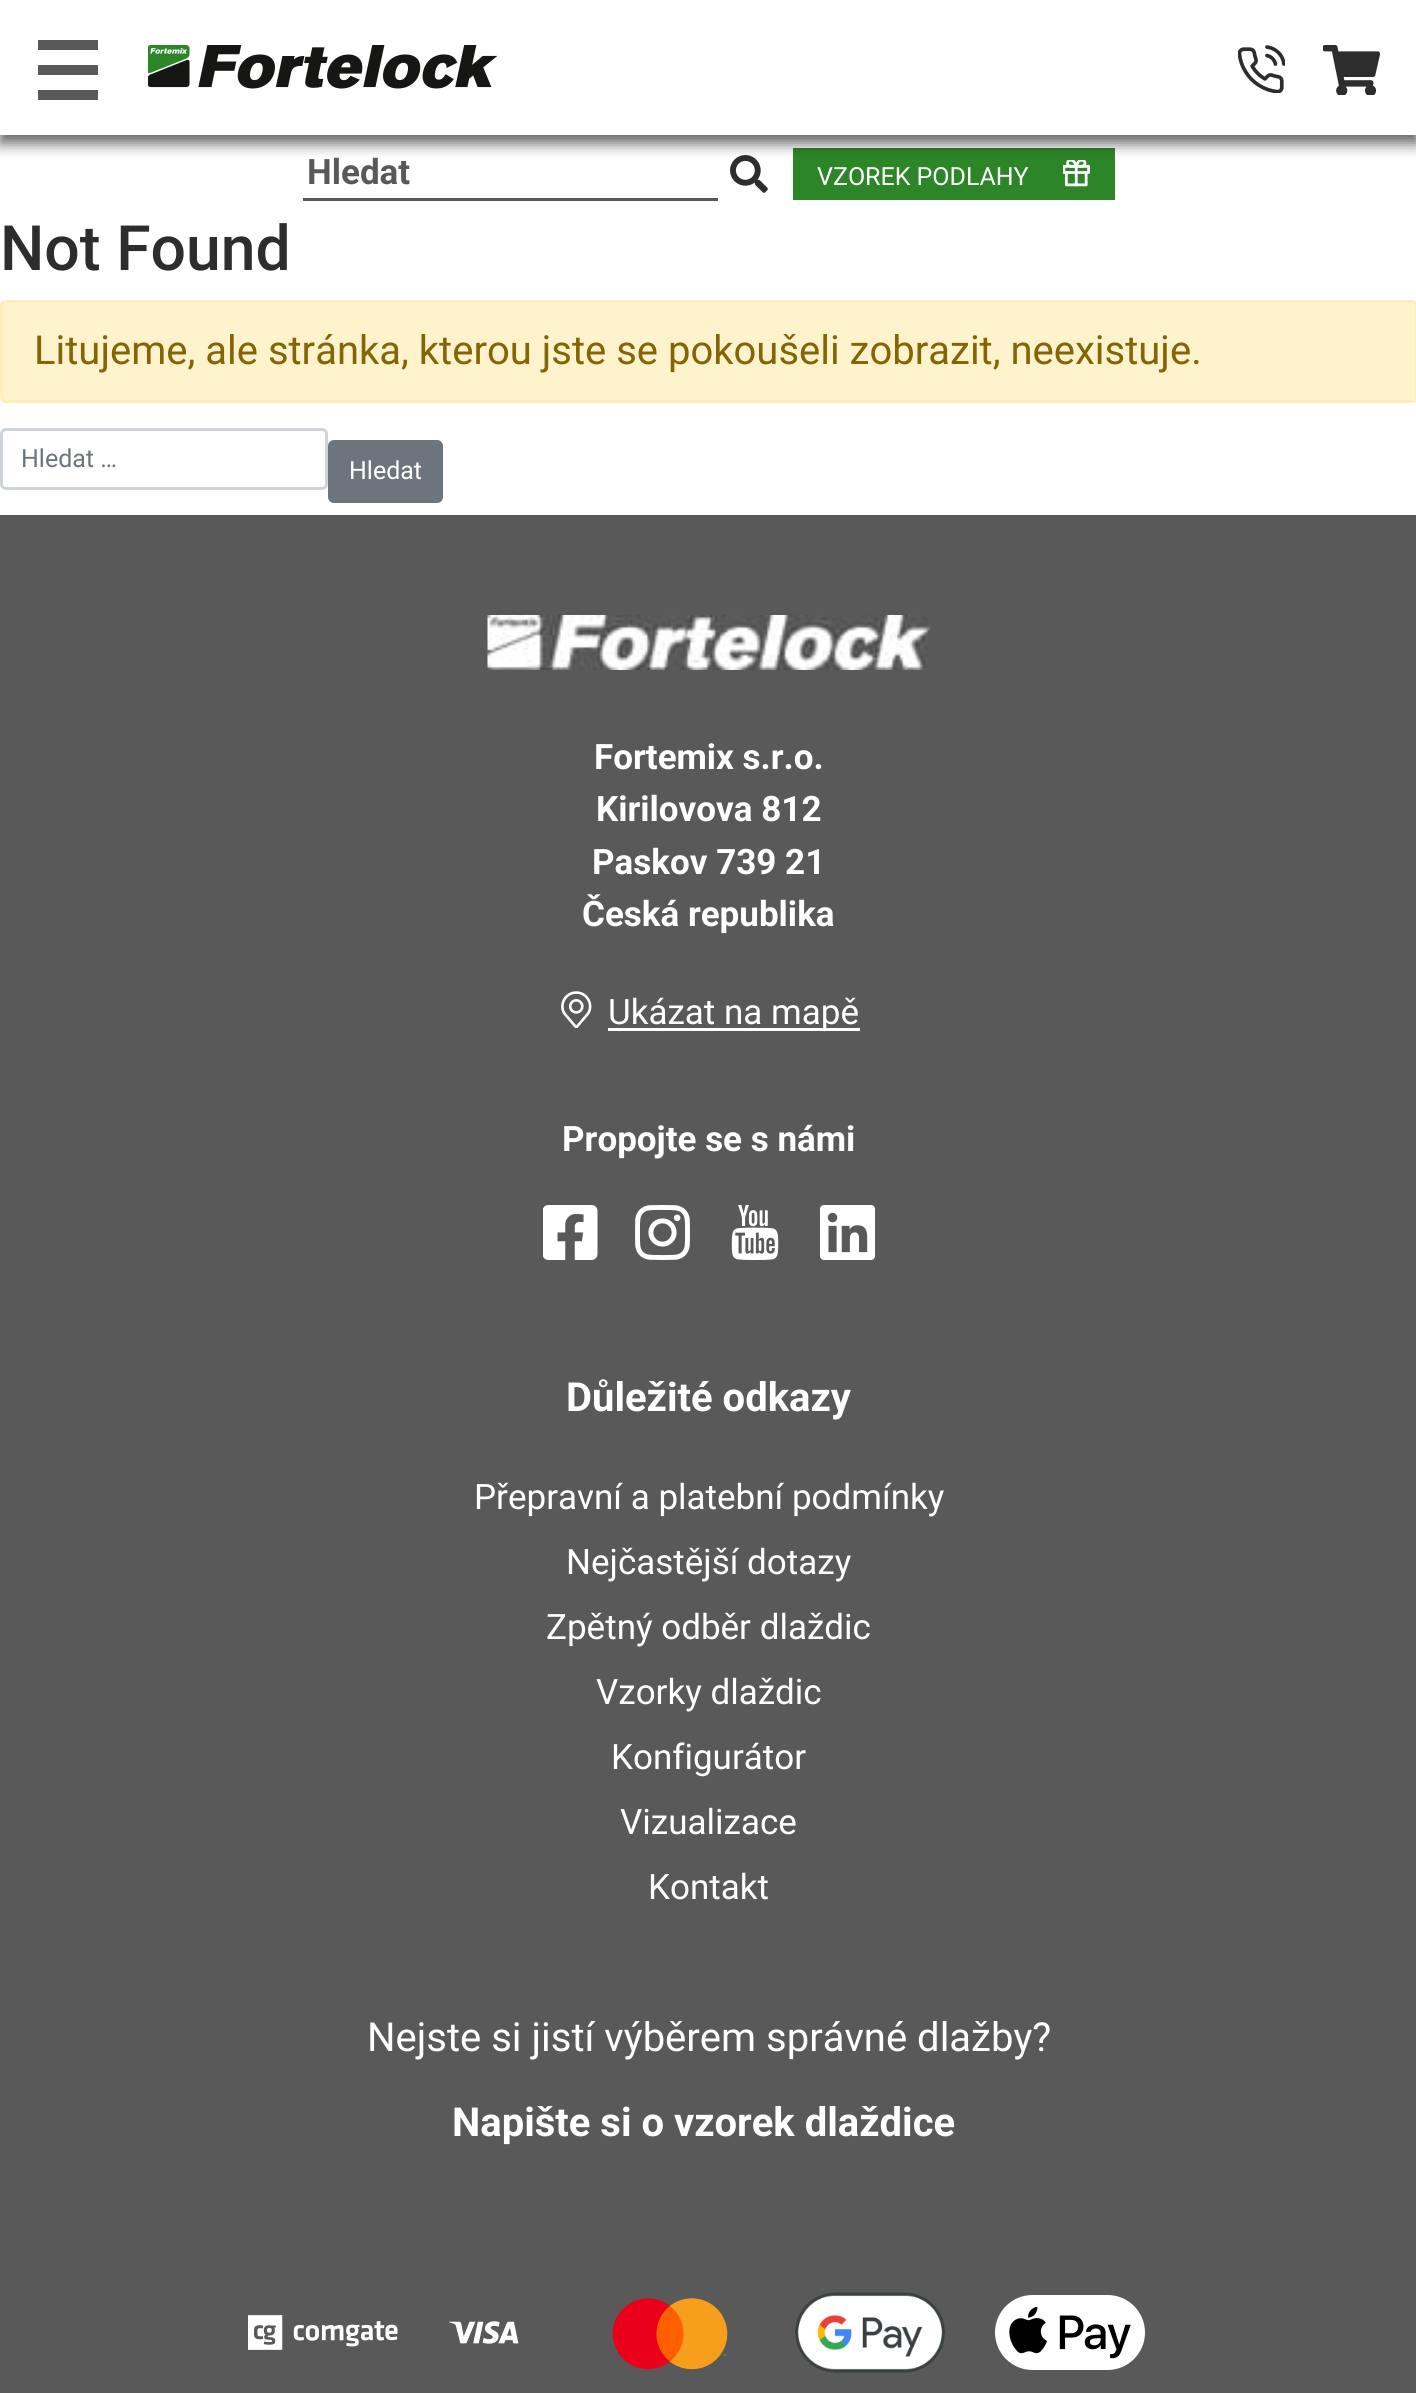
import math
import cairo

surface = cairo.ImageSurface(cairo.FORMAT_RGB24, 1416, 2393)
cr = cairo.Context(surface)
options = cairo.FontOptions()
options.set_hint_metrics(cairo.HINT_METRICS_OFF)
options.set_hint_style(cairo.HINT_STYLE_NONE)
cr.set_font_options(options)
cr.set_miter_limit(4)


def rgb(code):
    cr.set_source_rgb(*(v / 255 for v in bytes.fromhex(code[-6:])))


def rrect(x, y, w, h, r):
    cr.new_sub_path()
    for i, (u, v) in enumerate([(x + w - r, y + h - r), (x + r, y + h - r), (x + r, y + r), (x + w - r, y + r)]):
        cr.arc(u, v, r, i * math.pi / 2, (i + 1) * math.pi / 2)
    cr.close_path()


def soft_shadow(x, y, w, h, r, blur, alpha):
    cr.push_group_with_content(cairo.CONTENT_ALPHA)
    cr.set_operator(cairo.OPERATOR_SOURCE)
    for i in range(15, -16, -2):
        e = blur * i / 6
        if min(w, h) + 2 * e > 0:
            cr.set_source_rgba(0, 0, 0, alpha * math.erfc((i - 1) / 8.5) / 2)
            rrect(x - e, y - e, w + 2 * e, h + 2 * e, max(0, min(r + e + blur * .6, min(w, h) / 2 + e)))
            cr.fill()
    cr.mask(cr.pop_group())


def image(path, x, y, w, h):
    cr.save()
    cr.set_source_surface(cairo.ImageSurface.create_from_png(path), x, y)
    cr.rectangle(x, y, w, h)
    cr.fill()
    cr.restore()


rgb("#ffffff")
cr.paint()
image("img/4.png", 730, 155, 38, 38)
rgb("#2c8628")
cr.rectangle(793, 148, 322, 52)
cr.fill()
image("img/5.png", 1063, 160, 27, 27)
cr.save()
cr.rectangle(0, 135, 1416, 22)
cr.clip()
rgb("#000000")
soft_shadow(0, 8, 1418, 135, 0, 7.5, 0.64)
cr.restore()
for x, y, w, h, color in [
    (38, 40, 60, 10, "#595959"),
    (38, 65, 60, 10, "#595959"),
    (38, 90, 60, 10, "#595959"),
]:
    rgb(color)
    cr.rectangle(x, y, w, h)
    cr.fill()
image("img/1.png", 148, 45, 350, 44)
image("img/2.png", 1238, 45, 47, 48)
image("img/3.png", 1323, 45, 57, 50)
cr.rectangle(303, 198, 415, 3)
cr.fill()
rgb("#fff3cd")
rrect(1.5, 301.5, 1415, 100, 4.5)
cr.fill_preserve()
rgb("#ffeeba")
cr.set_line_width(3)
cr.stroke()
rrect(1.5, 429.5, 325, 59, 4.5)
rgb("#ced4da")
cr.stroke()
rgb("#6c757d")
rrect(329.5, 441.5, 112, 60, 4.5)
cr.fill_preserve()
cr.stroke()
rgb("#595959")
cr.rectangle(0, 515, 1416, 1878)
cr.fill()
image("img/6.png", 487, 615, 443, 55)
image("img/7.png", 561, 991, 31, 37)
rgb("#ffffff")
cr.rectangle(608, 1028, 252, 3)
cr.fill()
image("img/8.png", 543, 1205, 55, 55)
image("img/9.png", 635, 1205, 55, 55)
image("img/10.png", 731, 1205, 48, 55)
image("img/11.png", 820, 1205, 55, 55)
image("img/12.png", 248, 2315, 150, 35)
image("img/13.png", 449, 2321, 70, 23)
image("img/14.png", 612, 2298, 116, 72)
image("img/15.png", 795, 2292, 150, 81)
rrect(995, 2295, 150, 75, 37.5)
cr.fill()
image("img/16.png", 1009, 2306, 122, 53)
cr.select_font_face("Roboto", cairo.FONT_SLANT_NORMAL, cairo.FONT_WEIGHT_BOLD)
cr.set_font_size(35)
rgb("#595959")
cr.move_to(307, 184)
cr.show_text("Hledat")
cr.select_font_face("Roboto")
cr.set_font_size(25)
rgb("#ffffff")
cr.move_to(817, 185)
cr.show_text("VZOREK PODLAHY")
cr.select_font_face("Roboto Medium")
cr.set_font_size(62.5)
rgb("#2d2d2d")
cr.move_to(0, 270)
cr.show_text("Not Found")
cr.select_font_face("Roboto")
cr.set_font_size(40)
rgb("#856404")
cr.move_to(34, 364)
cr.show_text("Litujeme, ale stránka, kterou jste se pokoušeli zobrazit, neexistuje.")
cr.set_font_size(25)
rgb("#6c757d")
cr.move_to(21, 467)
cr.show_text("Hledat …")
rgb("#ffffff")
cr.move_to(349, 479)
cr.show_text("Hledat")
cr.select_font_face("Roboto", cairo.FONT_SLANT_NORMAL, cairo.FONT_WEIGHT_BOLD)
cr.set_font_size(35)
for x, y, s in [
    (594, 769, "Fortemix s.r.o."),
    (596, 821, "Kirilovova 812"),
    (592, 874, "Paskov 739 21"),
    (582, 926, "Česká republika"),
]:
    cr.move_to(x, y)
    cr.show_text(s)
cr.select_font_face("Roboto")
cr.move_to(608, 1024)
cr.show_text("Ukázat na mapě")
cr.select_font_face("Roboto", cairo.FONT_SLANT_NORMAL, cairo.FONT_WEIGHT_BOLD)
cr.move_to(562, 1151)
cr.show_text("Propojte se s námi")
cr.set_font_size(40)
cr.move_to(566, 1411)
cr.show_text("Důležité odkazy")
cr.select_font_face("Roboto")
cr.set_font_size(35)
for x, y, s in [
    (474, 1509, "Přepravní a platební podmínky"),
    (566, 1574, "Nejčastější dotazy"),
    (546, 1639, "Zpětný odběr dlaždic"),
    (596, 1704, "Vzorky dlaždic"),
    (611, 1769, "Konfigurátor"),
    (620, 1834, "Vizualizace"),
    (648, 1899, "Kontakt"),
]:
    cr.move_to(x, y)
    cr.show_text(s)
cr.set_font_size(40)
cr.move_to(367, 2051)
cr.show_text("Nejste si jistí výběrem správné dlažby?")
cr.select_font_face("Roboto", cairo.FONT_SLANT_NORMAL, cairo.FONT_WEIGHT_BOLD)
cr.move_to(452, 2136)
cr.show_text("Napište si o vzorek dlaždice")
surface.write_to_png("page.png")
